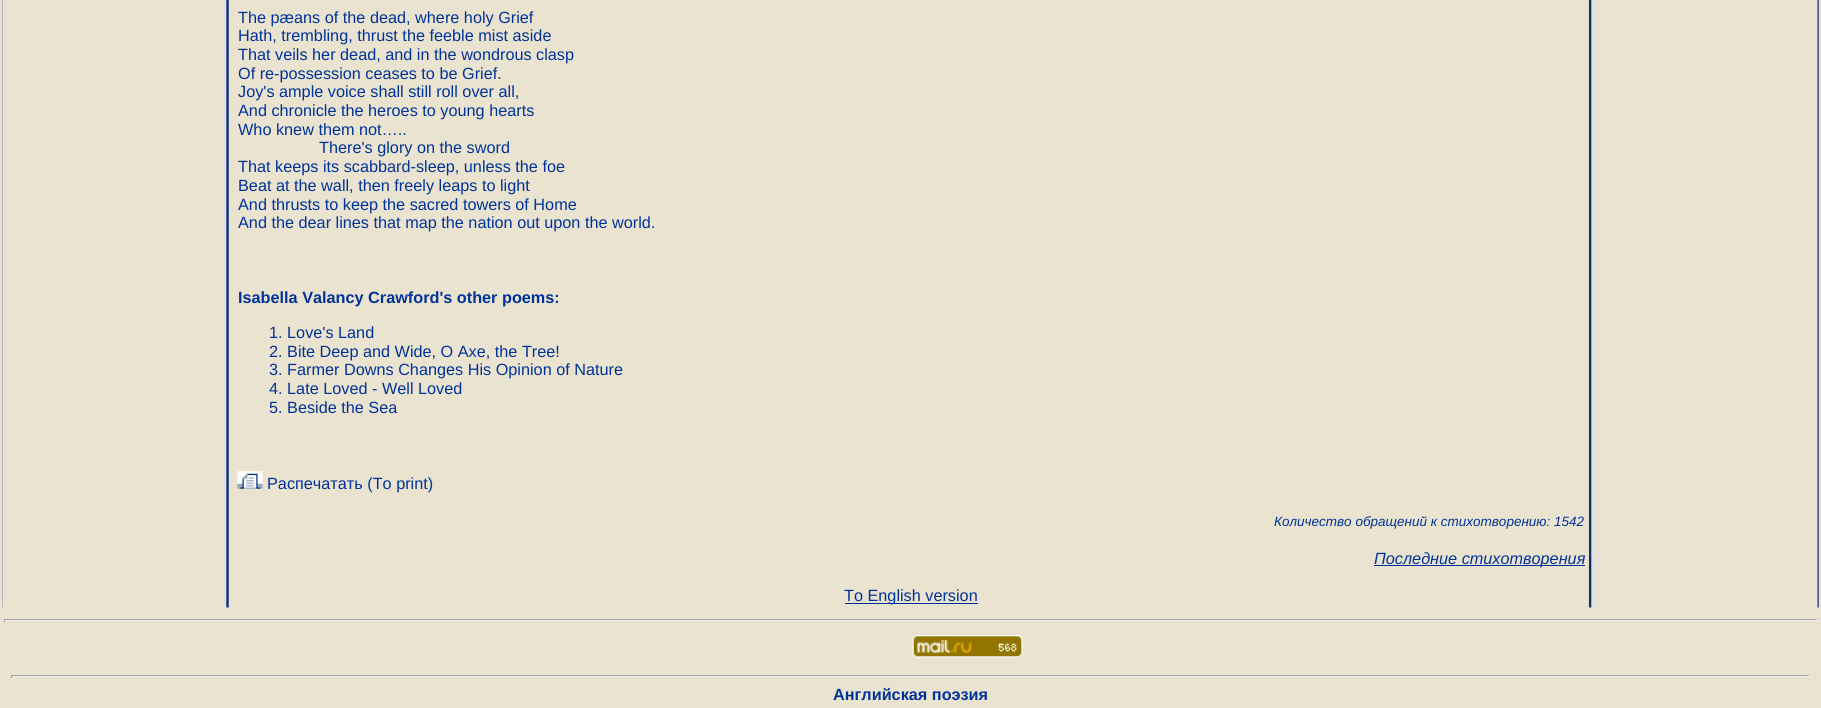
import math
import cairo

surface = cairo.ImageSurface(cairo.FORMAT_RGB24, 1821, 708)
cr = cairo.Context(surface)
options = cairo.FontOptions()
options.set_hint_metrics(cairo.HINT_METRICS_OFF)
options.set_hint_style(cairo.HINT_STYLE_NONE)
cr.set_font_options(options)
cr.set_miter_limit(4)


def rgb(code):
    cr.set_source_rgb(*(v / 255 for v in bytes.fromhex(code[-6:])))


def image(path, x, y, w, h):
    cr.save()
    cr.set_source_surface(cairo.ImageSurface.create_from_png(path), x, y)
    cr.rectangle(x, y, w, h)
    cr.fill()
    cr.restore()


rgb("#eae3d0")
cr.paint()
image("img/1.png", 2, 0, 227, 608)
image("img/2.png", 1588, 0, 231, 608)
image("img/3.png", 237, 471, 26, 18)
for x, y, w, h, color in [
    (1374, 565, 211, 1, "#003399"),
    (845, 603, 133, 1, "#003399"),
    (4, 619, 1814, 1, "#9f9f9f"),
    (1816, 619, 1, 3, "#eeeeee"),
    (4, 620, 1814, 1, "#eeeeee"),
    (4, 619, 1, 3, "#9f9f9f"),
]:
    rgb(color)
    cr.rectangle(x, y, w, h)
    cr.fill()
image("img/4.png", 912, 635, 111, 23)
for x, y, w, h, color in [
    (11, 675, 1799, 1, "#9f9f9f"),
    (1809, 675, 1, 3, "#eeeeee"),
    (11, 676, 1799, 1, "#eeeeee"),
    (11, 675, 1, 3, "#9f9f9f"),
]:
    rgb(color)
    cr.rectangle(x, y, w, h)
    cr.fill()
cr.select_font_face("Liberation Sans")
cr.set_font_size(16.25)
rgb("#003399")
for x, y, s in [
    (238, 23, "The pæans of the dead, where holy Grief"),
    (238, 41, "Hath, trembling, thrust the feeble mist aside"),
    (238, 60, "That veils her dead, and in the wondrous clasp"),
    (238, 79, "Of re-possession ceases to be Grief."),
    (238, 97, "Joy's ample voice shall still roll over all,"),
    (238, 116, "And chronicle the heroes to young hearts"),
    (238, 135, "Who knew them not….."),
    (319, 153, "There's glory on the sword"),
    (238, 172, "That keeps its scabbard-sleep, unless the foe"),
    (238, 191, "Beat at the wall, then freely leaps to light"),
    (238, 210, "And thrusts to keep the sacred towers of Home"),
    (238, 228, "And the dear lines that map the nation out upon the world."),
]:
    cr.move_to(x, y)
    cr.show_text(s)
cr.select_font_face("Liberation Sans", cairo.FONT_SLANT_NORMAL, cairo.FONT_WEIGHT_BOLD)
cr.move_to(238, 303)
cr.show_text("Isabella Valancy Crawford's other poems:")
cr.select_font_face("Liberation Sans")
for x, y, s in [
    (269, 338, "1. Love's Land"),
    (269, 357, "2. Bite Deep and Wide, O Axe, the Tree!"),
    (269, 375, "3. Farmer Downs Changes His Opinion of Nature"),
    (269, 394, "4. Late Loved - Well Loved"),
    (269, 413, "5. Beside the Sea"),
    (267, 489, "Распечатать (To print)"),
]:
    cr.move_to(x, y)
    cr.show_text(s)
cr.select_font_face("Liberation Sans", cairo.FONT_SLANT_ITALIC)
cr.set_font_size(13.5)
cr.move_to(1274, 526)
cr.show_text("Количество обращений к стихотворению: 1542")
cr.set_font_size(16.25)
cr.move_to(1374, 564)
cr.show_text("Последние стихотворения")
cr.select_font_face("Liberation Sans")
cr.move_to(844, 601)
cr.show_text("To English version")
cr.select_font_face("Liberation Sans", cairo.FONT_SLANT_NORMAL, cairo.FONT_WEIGHT_BOLD)
cr.move_to(833, 700)
cr.show_text("Английская поэзия")
surface.write_to_png("page.png")
